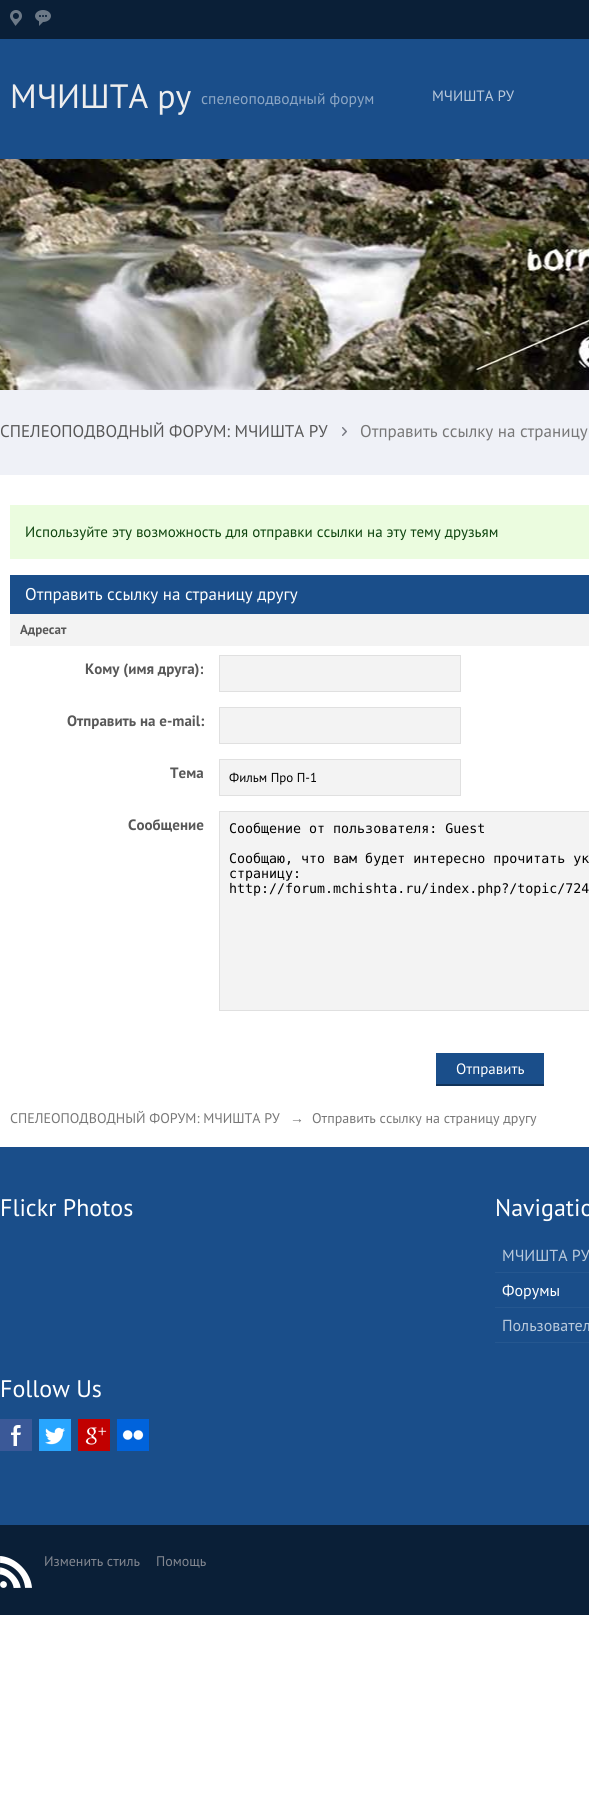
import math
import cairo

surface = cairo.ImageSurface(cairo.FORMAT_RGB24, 589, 1820)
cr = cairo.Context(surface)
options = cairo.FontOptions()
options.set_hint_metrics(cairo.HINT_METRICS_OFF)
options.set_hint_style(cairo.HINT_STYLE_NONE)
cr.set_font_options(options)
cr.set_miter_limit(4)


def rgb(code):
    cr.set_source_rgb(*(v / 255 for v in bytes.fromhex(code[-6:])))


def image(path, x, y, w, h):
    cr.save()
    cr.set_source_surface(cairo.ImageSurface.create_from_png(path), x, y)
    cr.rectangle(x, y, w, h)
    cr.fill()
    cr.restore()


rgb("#ffffff")
cr.paint()
rgb("#0a1f37")
cr.rectangle(0, 0, 589, 39)
cr.fill()
image("img/1.png", 10, 10, 12, 16)
image("img/2.png", 35, 10, 16, 16)
rgb("#1a4e8a")
cr.rectangle(0, 39, 589, 120)
cr.fill()
image("img/3.png", 0, 159, 589, 231)
rgb("#eff1f7")
cr.rectangle(0, 390, 589, 85)
cr.fill()
image("img/4.png", 342, 427, 5, 9)
for x, y, w, h, color in [
    (10, 505, 579, 54, "#ebfcdf"),
    (10, 575, 579, 39, "#1a4e8a"),
    (10, 614, 579, 32, "#f3f3f3"),
]:
    rgb(color)
    cr.rectangle(x, y, w, h)
    cr.fill()
cr.rectangle(219.5, 655.5, 241, 36)
cr.fill_preserve()
rgb("#e0e0e0")
cr.set_line_width(1)
cr.stroke()
rgb("#f3f3f3")
cr.rectangle(219.5, 707.5, 241, 36)
cr.fill_preserve()
rgb("#e0e0e0")
cr.stroke()
rgb("#f3f3f3")
cr.rectangle(219.5, 759.5, 241, 36)
cr.fill_preserve()
rgb("#e0e0e0")
cr.stroke()
rgb("#f3f3f3")
cr.rectangle(219.5, 811.5, 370, 199)
cr.fill_preserve()
rgb("#e0e0e0")
cr.stroke()
for x, y, w, h, color in [
    (436, 1053, 108, 31, "#1a4e8a"),
    (436, 1084, 108, 2, "#11335a"),
    (0, 1147, 589, 378, "#1a4e8a"),
    (495, 1272, 94, 1, "#255790"),
    (495, 1307, 94, 1, "#255790"),
    (495, 1342, 94, 1, "#255790"),
]:
    rgb(color)
    cr.rectangle(x, y, w, h)
    cr.fill()
image("img/5.png", 0, 1419, 32, 32)
image("img/6.png", 39, 1419, 32, 32)
image("img/7.png", 78, 1419, 32, 32)
image("img/8.png", 117, 1419, 32, 32)
rgb("#0a1f37")
cr.rectangle(0, 1525, 589, 90)
cr.fill()
image("img/9.png", 0, 1556, 32, 32)
cr.select_font_face("PT Sans")
cr.set_font_size(33.75)
rgb("#eeeeee")
cr.move_to(10, 108)
cr.show_text("МЧИШТА ру")
cr.set_font_size(15.6)
rgb("#8da7c5")
cr.move_to(201, 104)
cr.show_text("спелеоподводный форум")
cr.set_font_size(15)
rgb("#bacadc")
cr.move_to(432, 101)
cr.show_text("МЧИШТА РУ")
cr.set_font_size(17)
rgb("#585858")
cr.move_to(0, 437)
cr.show_text("СПЕЛЕОПОДВОДНЫЙ ФОРУМ: МЧИШТА РУ")
rgb("#777777")
cr.move_to(360, 437)
cr.show_text("Отправить ссылку на страницу")
cr.set_font_size(15)
rgb("#0e440e")
cr.move_to(25, 537)
cr.show_text("Используйте эту возможность для отправки ссылки на эту тему друзьям")
cr.set_font_size(17)
rgb("#ffffff")
cr.move_to(25, 600)
cr.show_text("Отправить ссылку на страницу другу")
cr.select_font_face("PT Sans", cairo.FONT_SLANT_NORMAL, cairo.FONT_WEIGHT_BOLD)
cr.set_font_size(13)
rgb("#585858")
cr.move_to(20, 634)
cr.show_text("Адресат")
cr.set_font_size(15)
for x, y, s in [
    (85, 674, "Кому (имя друга):"),
    (67, 726, "Отправить на e-mail:"),
    (170, 778, "Тема"),
]:
    cr.move_to(x, y)
    cr.show_text(s)
cr.select_font_face("PT Sans")
cr.set_font_size(13)
rgb("#000000")
cr.move_to(229, 782)
cr.show_text("Фильм Про П-1")
cr.select_font_face("PT Sans", cairo.FONT_SLANT_NORMAL, cairo.FONT_WEIGHT_BOLD)
cr.set_font_size(15)
rgb("#585858")
cr.move_to(128, 830)
cr.show_text("Сообщение")
cr.select_font_face("DejaVu Sans Mono")
cr.set_font_size(13.3)
rgb("#000000")
for x, y, s in [
    (229, 833, "Сообщение от пользователя: Guest"),
    (229, 863, "Сообщаю, что вам будет интересно прочитать ук"),
    (229, 878, "страницу:"),
    (229, 893, "http://forum.mchishta.ru/index.php?/topic/724"),
]:
    cr.move_to(x, y)
    cr.show_text(s)
cr.select_font_face("PT Sans")
cr.set_font_size(15)
rgb("#ffffff")
cr.move_to(456, 1074)
cr.show_text("Отправить")
cr.set_font_size(14)
rgb("#777777")
cr.move_to(10, 1123)
cr.show_text("СПЕЛЕОПОДВОДНЫЙ ФОРУМ: МЧИШТА РУ")
cr.select_font_face("Liberation Sans")
cr.move_to(290, 1123)
cr.show_text("→")
cr.select_font_face("PT Sans")
cr.move_to(312, 1123)
cr.show_text("Отправить ссылку на страницу другу")
cr.set_font_size(24)
rgb("#ffffff")
cr.move_to(0, 1216)
cr.show_text("Flickr Photos")
cr.move_to(495, 1216)
cr.show_text("Navigatio")
cr.set_font_size(16)
rgb("#bacadc")
cr.move_to(502, 1261)
cr.show_text("МЧИШТА РУ")
rgb("#ffffff")
cr.move_to(502, 1296)
cr.show_text("Форумы")
rgb("#bacadc")
cr.move_to(502, 1331)
cr.show_text("Пользовател")
cr.set_font_size(24)
rgb("#ffffff")
cr.move_to(0, 1397)
cr.show_text("Follow Us")
cr.set_font_size(14)
rgb("#838790")
cr.move_to(44, 1566)
cr.show_text("Изменить стиль")
cr.move_to(156, 1566)
cr.show_text("Помощь")
surface.write_to_png("page.png")
